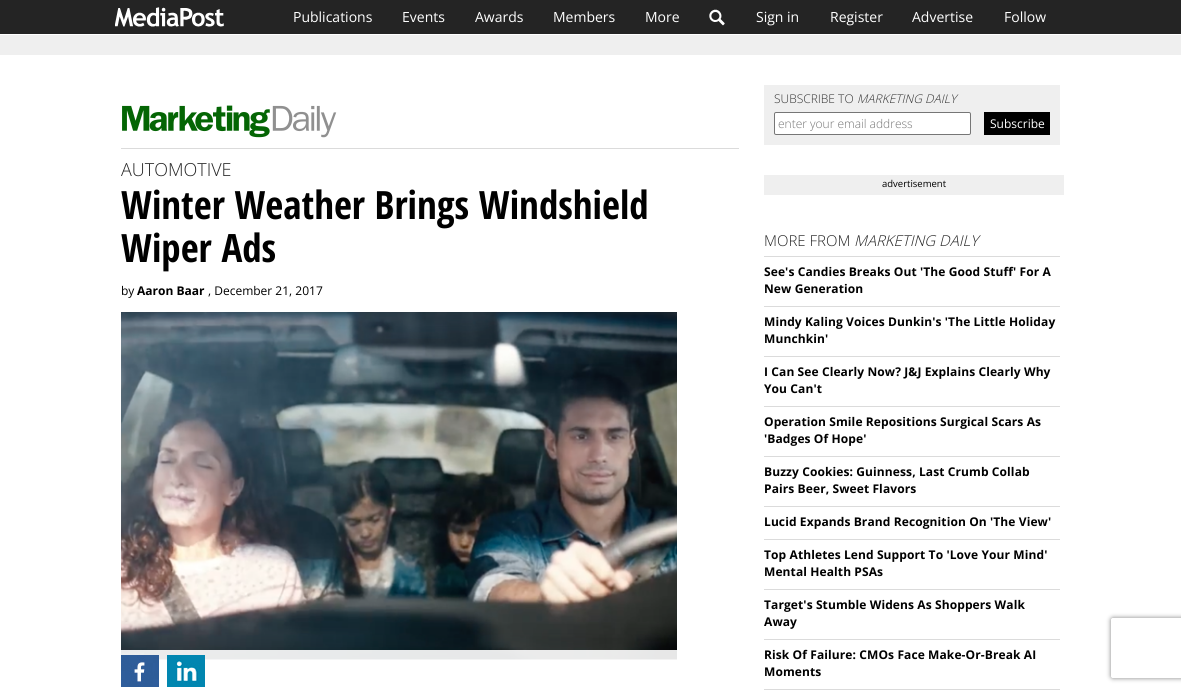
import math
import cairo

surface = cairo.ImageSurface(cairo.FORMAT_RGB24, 1181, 692)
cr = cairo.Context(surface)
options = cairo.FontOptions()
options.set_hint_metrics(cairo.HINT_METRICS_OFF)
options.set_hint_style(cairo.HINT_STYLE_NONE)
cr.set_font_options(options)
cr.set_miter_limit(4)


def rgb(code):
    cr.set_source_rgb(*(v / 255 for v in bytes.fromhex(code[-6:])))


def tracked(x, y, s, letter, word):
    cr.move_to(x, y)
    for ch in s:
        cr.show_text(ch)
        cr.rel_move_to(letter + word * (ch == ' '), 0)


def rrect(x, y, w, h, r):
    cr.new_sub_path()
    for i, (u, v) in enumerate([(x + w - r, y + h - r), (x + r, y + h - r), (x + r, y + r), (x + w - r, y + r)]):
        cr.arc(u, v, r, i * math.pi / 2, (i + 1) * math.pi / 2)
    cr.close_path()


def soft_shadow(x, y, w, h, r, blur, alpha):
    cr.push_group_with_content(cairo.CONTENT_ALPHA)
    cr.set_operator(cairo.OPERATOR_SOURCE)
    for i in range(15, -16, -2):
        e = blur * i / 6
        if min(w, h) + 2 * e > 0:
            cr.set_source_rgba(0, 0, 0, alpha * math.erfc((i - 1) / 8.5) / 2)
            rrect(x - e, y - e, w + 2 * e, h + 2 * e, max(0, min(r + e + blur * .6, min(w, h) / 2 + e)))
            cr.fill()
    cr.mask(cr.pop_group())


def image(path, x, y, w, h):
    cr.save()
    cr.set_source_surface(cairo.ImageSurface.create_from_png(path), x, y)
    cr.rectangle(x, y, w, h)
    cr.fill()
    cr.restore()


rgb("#ffffff")
cr.paint()
rgb("#242424")
cr.rectangle(0, 0, 1181, 34)
cr.fill()
image("img/1.png", 115, 7, 109, 20)
image("img/2.png", 709, 9, 16, 17)
rgb("#efefef")
cr.rectangle(0, 35, 1181, 20)
cr.fill()
rgb("#dbdbdb")
cr.rectangle(121, 148, 618, 1)
cr.fill()
image("img/3.png", 122, 105, 215, 33)
rgb("#efefef")
cr.rectangle(764, 85, 296, 60)
cr.fill()
rgb("#ffffff")
rrect(774.5, 112.5, 196, 22, 1.5)
cr.fill_preserve()
rgb("#767676")
cr.set_line_width(1)
cr.stroke()
rgb("#000000")
cr.rectangle(984, 112, 66, 23)
cr.fill()
cr.save()
cr.set_fill_rule(cairo.FILL_RULE_EVEN_ODD)
cr.new_path()
cr.move_to(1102, 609)
cr.line_to(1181, 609)
cr.line_to(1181, 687)
cr.line_to(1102, 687)
cr.close_path()
cr.move_to(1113, 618)
cr.line_to(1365, 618)
cr.curve_to(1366, 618, 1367, 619, 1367, 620)
cr.line_to(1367, 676)
cr.curve_to(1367, 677, 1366, 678, 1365, 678)
cr.line_to(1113, 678)
cr.curve_to(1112, 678, 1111, 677, 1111, 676)
cr.line_to(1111, 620)
cr.curve_to(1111, 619, 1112, 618, 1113, 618)
cr.close_path()
cr.clip()
rgb("#808080")
soft_shadow(1111, 618, 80, 60, 2, 2.5, 1)
cr.restore()
image("img/4.png", 121, 312, 556, 348)
cr.set_source_rgba(1, 1, 1, 0.9)
cr.rectangle(121, 650, 556, 10)
cr.fill()
image("img/5.png", 121, 655, 38, 32)
image("img/6.png", 167, 655, 38, 32)
for x, y, w, h, color in [
    (764, 175, 300, 20, "#efefef"),
    (764, 256, 296, 1, "#dbdbdb"),
    (764, 306, 296, 1, "#dbdbdb"),
    (764, 356, 296, 1, "#dbdbdb"),
    (764, 406, 296, 1, "#dbdbdb"),
    (764, 456, 296, 1, "#dbdbdb"),
    (764, 506, 296, 1, "#dbdbdb"),
    (764, 539, 296, 1, "#dbdbdb"),
    (764, 589, 296, 1, "#dbdbdb"),
    (764, 639, 296, 1, "#dbdbdb"),
    (764, 689, 296, 1, "#dbdbdb"),
]:
    rgb(color)
    cr.rectangle(x, y, w, h)
    cr.fill()
cr.select_font_face("Open Sans")
cr.set_font_size(14)
rgb("#ffffff")
for x, y, s in [
    (293, 22, "Publications"),
    (402, 22, "Events"),
    (475, 22, "Awards"),
    (553, 22, "Members"),
    (645, 22, "More"),
    (756, 22, "Sign in"),
    (830, 22, "Register"),
    (912, 22, "Advertise"),
    (1004, 22, "Follow"),
]:
    cr.move_to(x, y)
    cr.show_text(s)
cr.select_font_face("Open Sans Light")
cr.set_font_size(12)
rgb("#333333")
cr.move_to(774, 103)
cr.show_text("SUBSCRIBE TO")
cr.select_font_face("Open Sans Light", cairo.FONT_SLANT_ITALIC)
cr.move_to(857, 103)
cr.show_text("MARKETING DAILY")
cr.select_font_face("Open Sans Light")
rgb("#757575")
cr.move_to(778, 128)
cr.show_text("enter your email address")
cr.select_font_face("Open Sans")
rgb("#ffffff")
cr.move_to(990, 128)
cr.show_text("Subscribe")
cr.select_font_face("Open Sans Light")
cr.set_font_size(18)
rgb("#242424")
cr.move_to(121, 176)
cr.show_text("AUTOMOTIVE")
cr.select_font_face("Open Sans Condensed", cairo.FONT_SLANT_NORMAL, cairo.FONT_WEIGHT_BOLD)
cr.set_font_size(39)
rgb("#000000")
cr.move_to(121, 219)
cr.show_text("Winter Weather Brings Windshield")
cr.move_to(121, 262)
cr.show_text("Wiper Ads")
cr.select_font_face("Open Sans")
cr.set_font_size(12)
cr.move_to(121, 295)
cr.show_text("by")
cr.select_font_face("Open Sans", cairo.FONT_SLANT_NORMAL, cairo.FONT_WEIGHT_BOLD)
cr.move_to(137, 295)
cr.show_text("Aaron Baar")
cr.select_font_face("Open Sans")
cr.move_to(208, 295)
cr.show_text(", December 21, 2017")
cr.set_font_size(9.5)
cr.move_to(882, 187)
cr.show_text("advertisement")
cr.select_font_face("Open Sans Light")
cr.set_font_size(15)
rgb("#242424")
cr.move_to(764, 246)
cr.show_text("MORE FROM")
cr.select_font_face("Open Sans Light", cairo.FONT_SLANT_ITALIC)
cr.move_to(854, 246)
cr.show_text("MARKETING DAILY")
cr.select_font_face("Open Sans", cairo.FONT_SLANT_NORMAL, cairo.FONT_WEIGHT_BOLD)
cr.set_font_size(12)
rgb("#000000")
for x, y, s in [
    (764, 276, "See's Candies Breaks Out 'The Good Stuff' For A"),
    (764, 293, "New Generation"),
    (764, 326, "Mindy Kaling Voices Dunkin's 'The Little Holiday"),
    (764, 343, "Munchkin'"),
    (764, 376, "I Can See Clearly Now? J&J Explains Clearly Why"),
    (764, 393, "You Can't"),
    (764, 426, "Operation Smile Repositions Surgical Scars As"),
    (764, 443, "'Badges Of Hope'"),
    (764, 476, "Buzzy Cookies: Guinness, Last Crumb Collab"),
    (764, 493, "Pairs Beer, Sweet Flavors"),
    (764, 526, "Lucid Expands Brand Recognition On 'The View'"),
    (764, 559, "Top Athletes Lend Support To 'Love Your Mind'"),
    (764, 576, "Mental Health PSAs"),
    (764, 609, "Target's Stumble Widens As Shoppers Walk"),
    (764, 626, "Away"),
    (764, 659, "Risk Of Failure: CMOs Face Make-Or-Break AI"),
    (764, 676, "Moments"),
]:
    tracked(x, y, s, 0.1, 0)
surface.write_to_png("page.png")
